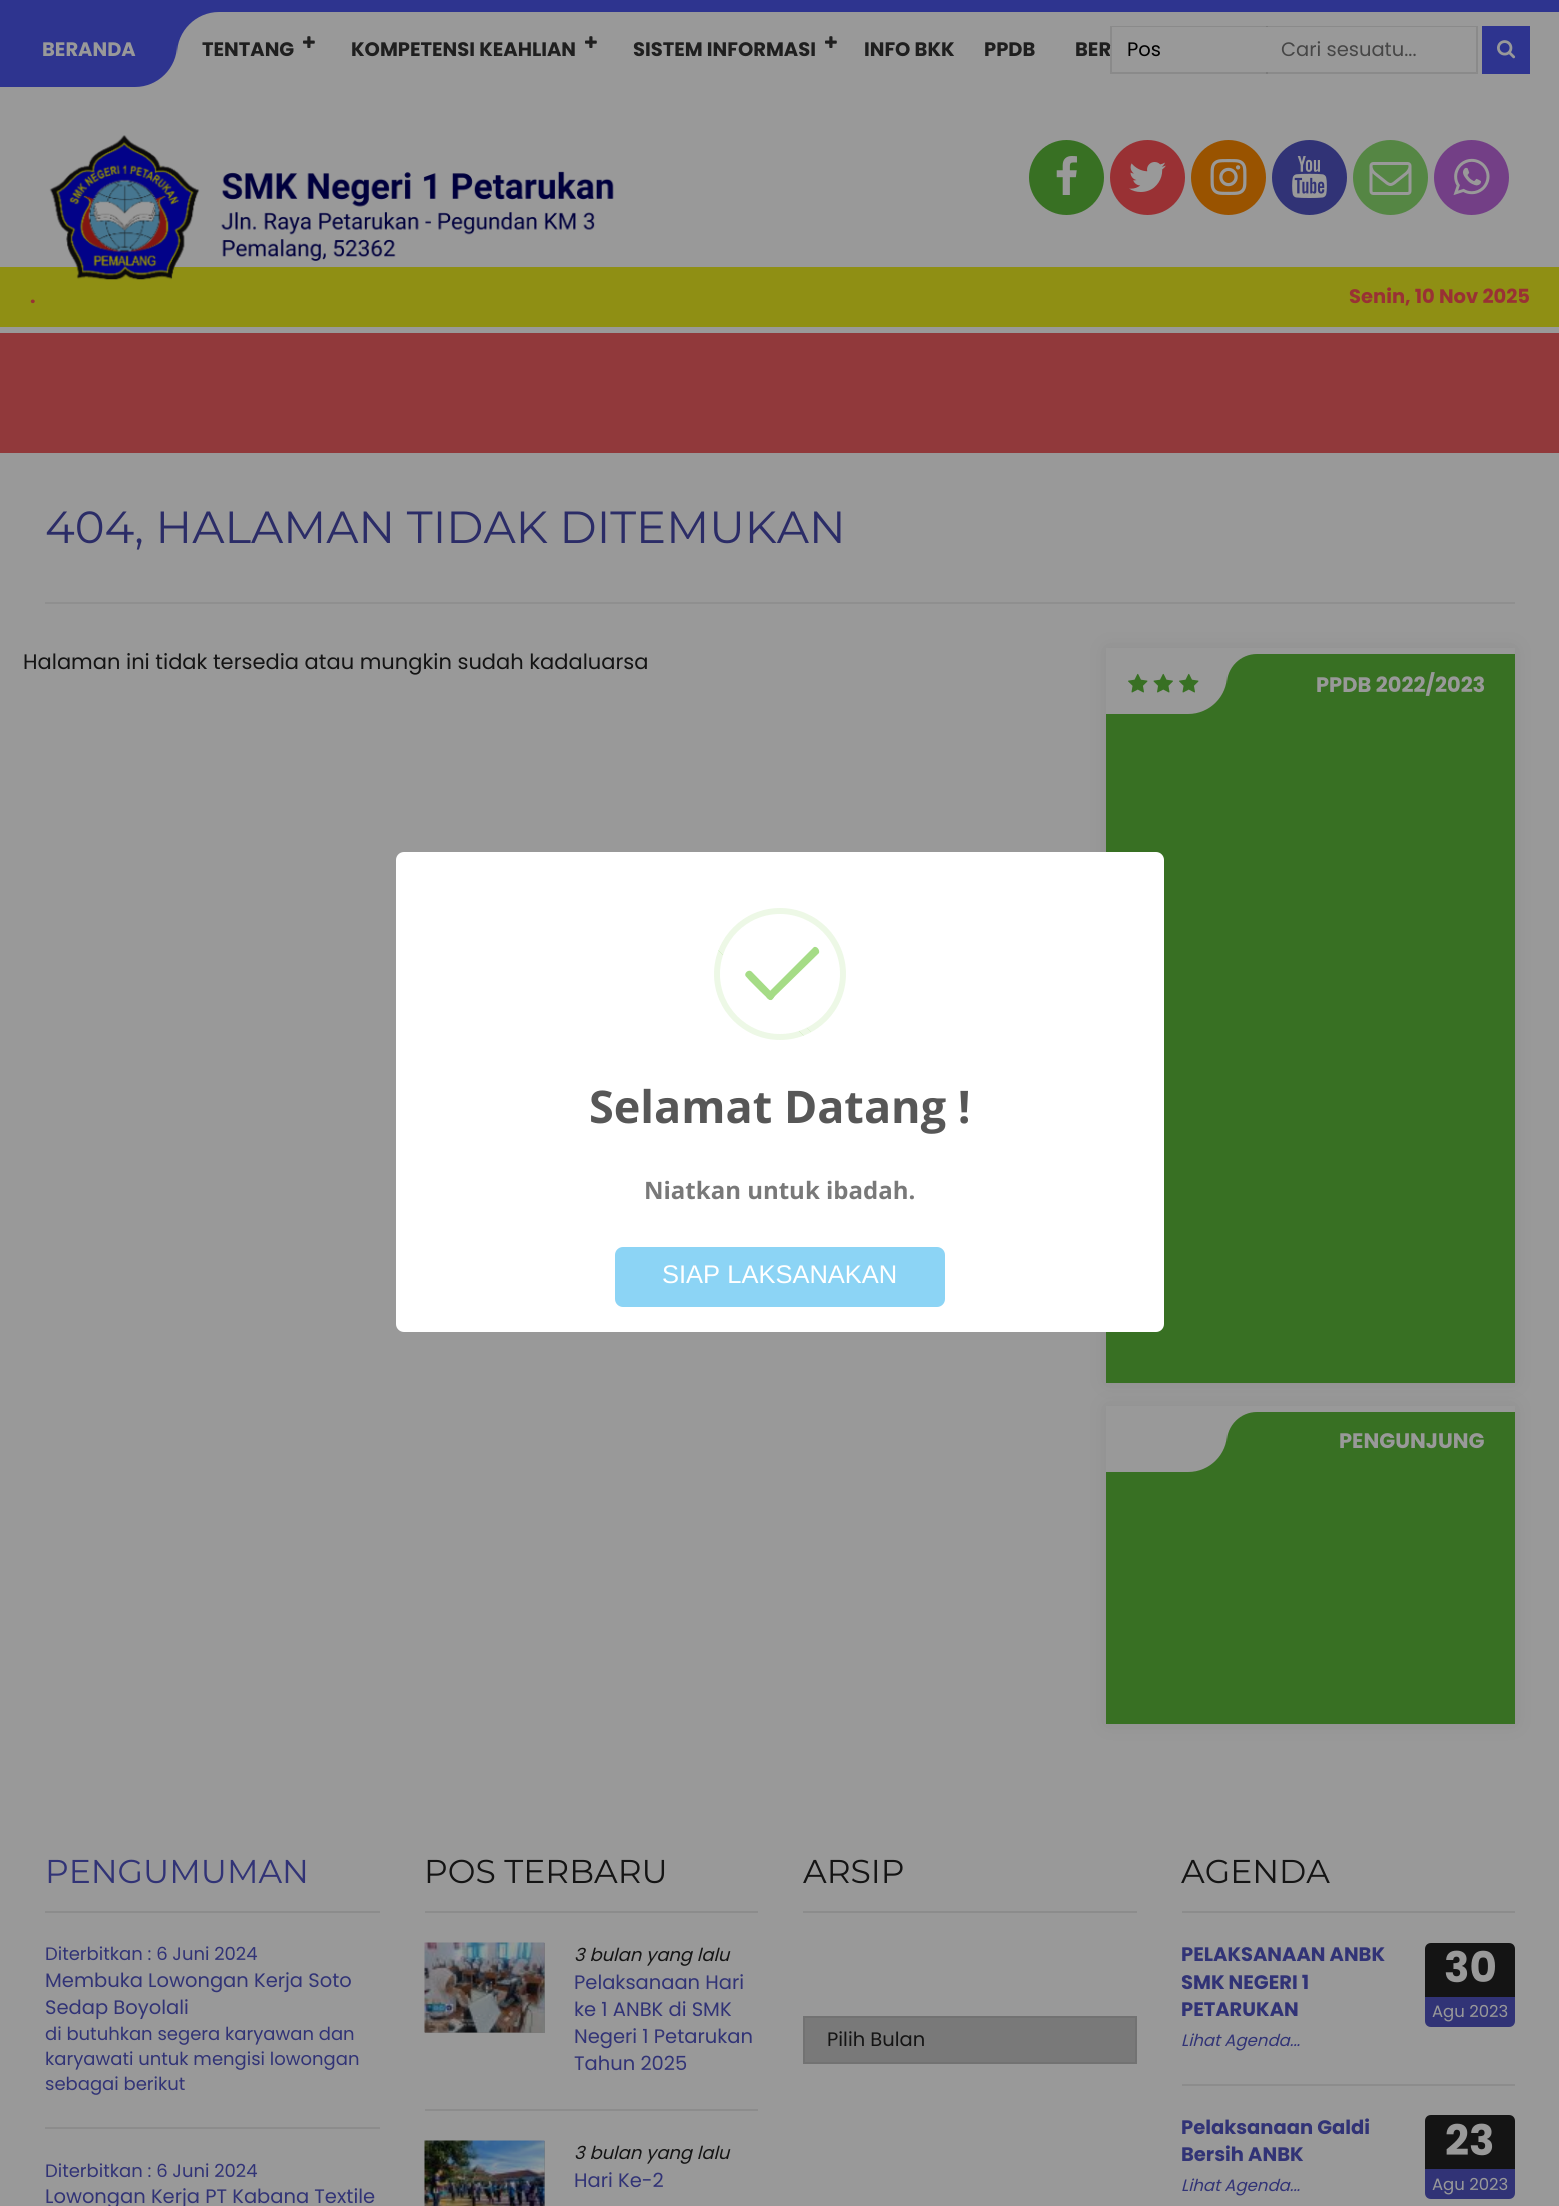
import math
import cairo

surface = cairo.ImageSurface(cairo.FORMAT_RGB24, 1559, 2206)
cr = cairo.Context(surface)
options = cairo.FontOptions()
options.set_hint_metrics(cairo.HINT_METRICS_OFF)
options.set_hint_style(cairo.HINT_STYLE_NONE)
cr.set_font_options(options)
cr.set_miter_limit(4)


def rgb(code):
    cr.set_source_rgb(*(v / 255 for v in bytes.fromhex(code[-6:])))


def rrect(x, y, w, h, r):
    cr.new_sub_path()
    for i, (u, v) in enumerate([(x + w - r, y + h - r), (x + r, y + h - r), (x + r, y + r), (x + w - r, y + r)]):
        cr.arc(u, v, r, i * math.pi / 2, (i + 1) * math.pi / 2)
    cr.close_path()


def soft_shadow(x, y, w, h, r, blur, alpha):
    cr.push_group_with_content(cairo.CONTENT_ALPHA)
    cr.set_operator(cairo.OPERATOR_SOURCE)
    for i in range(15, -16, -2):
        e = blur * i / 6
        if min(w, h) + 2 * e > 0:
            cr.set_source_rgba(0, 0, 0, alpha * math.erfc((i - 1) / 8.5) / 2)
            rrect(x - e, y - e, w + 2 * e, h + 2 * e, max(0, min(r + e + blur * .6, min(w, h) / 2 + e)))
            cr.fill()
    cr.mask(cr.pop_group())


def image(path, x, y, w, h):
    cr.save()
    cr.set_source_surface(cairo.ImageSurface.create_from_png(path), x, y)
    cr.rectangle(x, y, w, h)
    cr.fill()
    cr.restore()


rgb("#999999")
cr.paint()
rgb("#2e348f")
cr.rectangle(0, 0, 1559, 12)
cr.fill()
cr.new_path()
cr.move_to(0, 12)
cr.line_to(177, 12)
cr.line_to(177, 45)
cr.curve_to(177, 68, 158, 87, 135, 87)
cr.line_to(0, 87)
cr.close_path()
cr.fill()
cr.rectangle(177, 12, 42, 42)
cr.fill()
rgb("#999999")
cr.new_path()
cr.move_to(219, 12)
cr.line_to(327, 12)
cr.line_to(327, 87)
cr.line_to(177, 87)
cr.line_to(177, 54)
cr.curve_to(177, 31, 196, 12, 219, 12)
cr.close_path()
cr.fill()
image("img/1.png", 303, 36, 12, 12)
image("img/1.png", 585, 36, 12, 12)
image("img/1.png", 825, 36, 12, 12)
rgb("#8a8a8a")
cr.new_path()
cr.move_to(1266, 26)
cr.line_to(1478, 26)
cr.line_to(1476, 27)
cr.line_to(1266, 27)
cr.close_path()
cr.fill()
cr.set_source_rgba(0, 0, 0, 0.1)
cr.new_path()
cr.move_to(1110, 26)
cr.line_to(1268, 26)
cr.line_to(1268, 27)
cr.line_to(1112, 27)
cr.close_path()
cr.fill()
cr.new_path()
cr.move_to(1478, 26)
cr.line_to(1478, 74)
cr.line_to(1476, 72)
cr.line_to(1476, 27)
cr.close_path()
cr.fill()
cr.new_path()
cr.move_to(1478, 74)
cr.line_to(1266, 74)
cr.line_to(1266, 72)
cr.line_to(1476, 72)
cr.close_path()
cr.fill()
cr.new_path()
cr.move_to(1268, 74)
cr.line_to(1110, 74)
cr.line_to(1112, 72)
cr.line_to(1268, 72)
cr.close_path()
cr.fill()
rgb("#2e348f")
cr.rectangle(1482, 26, 48, 48)
cr.fill()
image("img/2.png", 1497, 40, 19, 19)
rgb("#8f8f14")
cr.rectangle(0, 267, 1559, 60)
cr.fill()
image("img/3.png", 49, 135, 565, 145)
rgb("#387023")
cr.arc(1066.5, 177.5, 37.5, 0, 2 * math.pi)
cr.fill()
image("img/4.png", 1056, 156, 21, 39)
rgb("#993134")
cr.arc(1147.5, 177.5, 37.5, 0, 2 * math.pi)
cr.fill()
image("img/5.png", 1129, 162, 37, 30)
rgb("#995300")
cr.arc(1228.5, 177.5, 37.5, 0, 2 * math.pi)
cr.fill()
image("img/6.png", 1210, 159, 37, 36)
rgb("#313376")
cr.arc(1309.5, 177.5, 37.5, 0, 2 * math.pi)
cr.fill()
image("img/7.png", 1292, 156, 35, 42)
rgb("#558644")
cr.arc(1390.5, 177.5, 37.5, 0, 2 * math.pi)
cr.fill()
image("img/8.png", 1369, 162, 43, 33)
rgb("#733f86")
cr.arc(1471.5, 177.5, 37.5, 0, 2 * math.pi)
cr.fill()
image("img/9.png", 1453, 158, 37, 38)
rgb("#91393b")
cr.rectangle(0, 333, 1559, 120)
cr.fill()
rgb("#8f8f8f")
cr.rectangle(45, 602, 1470, 2)
cr.fill()
rgb("#000000")
soft_shadow(1106, 648, 409, 735, 0, 11, 0.07)
rgb("#387023")
cr.rectangle(1106, 654, 409, 729)
cr.fill()
rgb("#999999")
cr.rectangle(1106, 648, 409, 6)
cr.fill()
cr.new_path()
cr.move_to(1106, 654)
cr.line_to(1227, 654)
cr.line_to(1227, 675)
cr.curve_to(1227, 696.5, 1209.5, 714, 1188, 714)
cr.line_to(1106, 714)
cr.close_path()
cr.fill()
image("img/10.png", 1128, 673, 20, 20)
image("img/11.png", 1153, 673, 20, 20)
image("img/10.png", 1179, 673, 20, 20)
cr.rectangle(1227, 654, 30, 30)
cr.fill()
rgb("#387023")
cr.new_path()
cr.move_to(1257, 654)
cr.line_to(1257, 708)
cr.line_to(1227, 708)
cr.line_to(1227, 684)
cr.curve_to(1227, 667.5, 1240.5, 654, 1257, 654)
cr.close_path()
cr.fill()
rgb("#000000")
soft_shadow(1106, 1406, 409, 318, 0, 11, 0.07)
rgb("#387023")
cr.rectangle(1106, 1412, 409, 312)
cr.fill()
rgb("#999999")
cr.rectangle(1106, 1406, 409, 6)
cr.fill()
cr.new_path()
cr.move_to(1106, 1412)
cr.line_to(1227, 1412)
cr.line_to(1227, 1433)
cr.curve_to(1227, 1454.5, 1209.5, 1472, 1188, 1472)
cr.line_to(1106, 1472)
cr.close_path()
cr.fill()
cr.rectangle(1227, 1412, 30, 30)
cr.fill()
rgb("#387023")
cr.new_path()
cr.move_to(1257, 1412)
cr.line_to(1257, 1466)
cr.line_to(1227, 1466)
cr.line_to(1227, 1442)
cr.curve_to(1227, 1425.5, 1240.5, 1412, 1257, 1412)
cr.close_path()
cr.fill()
rgb("#ffffff")
rrect(396, 852, 768, 480, 8)
cr.fill()
cr.arc(780, 974, 63, 0, 2 * math.pi)
rgb("#a5dc86")
cr.set_line_width(6)
cr.stroke()
rgb("#ffffff")
cr.new_path()
cr.move_to(697, 929)
cr.line_to(824, 1056)
cr.curve_to(789, 1091, 732, 1091, 697, 1056)
cr.curve_to(662, 1021, 662, 964, 697, 929)
cr.close_path()
cr.fill()
cr.new_path()
cr.move_to(701, 923)
cr.curve_to(737, 887, 793, 887, 829, 923)
cr.curve_to(864, 958, 864, 1015, 829, 1050)
cr.close_path()
cr.fill()
cr.new_path()
cr.move_to(715, 947)
cr.line_to(721, 942)
cr.line_to(816, 1037)
cr.line_to(811, 1043)
cr.close_path()
cr.fill()
rgb("#a5dc86")
cr.new_path()
cr.move_to(751.5, 971.5)
cr.line_to(770, 990.5)
cr.curve_to(771.5, 992, 776.5, 995, 773.5, 998)
cr.curve_to(772.5, 999.5, 771.5, 1000.5, 770, 1000)
cr.curve_to(768, 999.5, 752.5, 983.5, 749.5, 980.5)
cr.line_to(745.5, 976)
cr.curve_to(744, 973, 748.5, 969, 751.5, 971.5)
cr.close_path()
cr.fill()
cr.new_path()
cr.move_to(767, 994)
cr.line_to(814, 947)
cr.curve_to(817, 946, 820, 950, 819, 953)
cr.line_to(772, 999)
cr.line_to(770, 1000)
cr.curve_to(767, 999, 765, 996, 767, 994)
cr.close_path()
cr.fill()
cr.arc(780, 974, 63, 0, 2 * math.pi)
cr.set_source_rgba(0.647, 0.863, 0.525, 0.2)
cr.stroke()
rgb("#8cd4f5")
rrect(615, 1247, 330, 60, 8)
cr.fill()
for x, y, w, h, color in [
    (45, 1911, 335, 2, "#8c8c8c"),
    (45, 2127, 335, 2, "#8c8c8c"),
    (425, 1911, 333, 2, "#8c8c8c"),
    (425, 2109, 333, 2, "#8c8c8c"),
    (425, 1943, 120, 90, "#797979"),
]:
    rgb(color)
    cr.rectangle(x, y, w, h)
    cr.fill()
image("img/12.png", 424, 1942, 121, 91)
cr.rectangle(544, 2141, 1, 65)
cr.fill()
image("img/13.png", 424, 2140, 121, 66)
rgb("#8c8c8c")
cr.rectangle(803, 1911, 334, 2)
cr.fill()
rgb("#797979")
cr.rectangle(804, 2017, 332, 46)
cr.fill_preserve()
rgb("#727272")
cr.set_line_width(2)
cr.stroke()
rgb("#8c8c8c")
cr.rectangle(1182, 1911, 333, 2)
cr.fill()
cr.rectangle(1182, 2084, 333, 2)
cr.fill()
rgb("#141414")
cr.new_path()
cr.move_to(1431, 1943)
cr.line_to(1509, 1943)
cr.curve_to(1512.5, 1943, 1515, 1945.5, 1515, 1949)
cr.line_to(1515, 1997)
cr.line_to(1425, 1997)
cr.line_to(1425, 1949)
cr.curve_to(1425, 1945.5, 1427.5, 1943, 1431, 1943)
cr.close_path()
cr.fill()
rgb("#313376")
cr.new_path()
cr.move_to(1425, 1997)
cr.line_to(1515, 1997)
cr.line_to(1515, 2021)
cr.curve_to(1515, 2024.5, 1512.5, 2027, 1509, 2027)
cr.line_to(1431, 2027)
cr.curve_to(1427.5, 2027, 1425, 2024.5, 1425, 2021)
cr.close_path()
cr.fill()
rgb("#141414")
cr.new_path()
cr.move_to(1431, 2115)
cr.line_to(1509, 2115)
cr.curve_to(1512.5, 2115, 1515, 2117.5, 1515, 2121)
cr.line_to(1515, 2169)
cr.line_to(1425, 2169)
cr.line_to(1425, 2121)
cr.curve_to(1425, 2117.5, 1427.5, 2115, 1431, 2115)
cr.close_path()
cr.fill()
rgb("#313376")
cr.new_path()
cr.move_to(1425, 2169)
cr.line_to(1515, 2169)
cr.line_to(1515, 2193)
cr.curve_to(1515, 2196.5, 1512.5, 2199, 1509, 2199)
cr.line_to(1431, 2199)
cr.curve_to(1427.5, 2199, 1425, 2196.5, 1425, 2193)
cr.close_path()
cr.fill()
cr.select_font_face("Poppins", cairo.FONT_SLANT_NORMAL, cairo.FONT_WEIGHT_BOLD)
cr.set_font_size(19.5)
rgb("#999999")
cr.move_to(42, 56)
cr.show_text("BERANDA")
rgb("#1f1f1f")
for x, y, s in [
    (202, 56, "TENTANG"),
    (351, 56, "KOMPETENSI KEAHLIAN"),
    (633, 56, "SISTEM INFORMASI"),
    (864, 56, "INFO BKK"),
    (984, 56, "PPDB"),
    (1075, 56, "BER"),
]:
    cr.move_to(x, y)
    cr.show_text(s)
rgb("#999999")
cr.rectangle(1110, 46, 1, 10)
cr.fill()
cr.set_source_rgba(0, 0, 0, 0.1)
cr.new_path()
cr.move_to(1110, 74)
cr.line_to(1110, 26)
cr.line_to(1112, 27)
cr.line_to(1112, 72)
cr.close_path()
cr.fill()
cr.select_font_face("Poppins")
rgb("#000000")
cr.move_to(1127, 56)
cr.show_text("Pos")
rgb("#464646")
cr.move_to(1281, 56)
cr.show_text("Cari sesuatu...")
cr.select_font_face("Poppins", cairo.FONT_SLANT_NORMAL, cairo.FONT_WEIGHT_BOLD)
rgb("#993134")
cr.move_to(30, 303)
cr.show_text(".")
cr.move_to(1349, 303)
cr.show_text("Senin, 10 Nov 2025")
cr.select_font_face("Montserrat")
cr.set_font_size(45)
rgb("#2b2c67")
cr.move_to(45, 543)
cr.show_text("404, HALAMAN TIDAK DITEMUKAN")
cr.select_font_face("Poppins")
cr.set_font_size(21)
rgb("#141414")
cr.move_to(23, 669)
cr.show_text("Halaman ini tidak tersedia atau mungkin sudah kadaluarsa")
cr.select_font_face("Poppins", cairo.FONT_SLANT_NORMAL, cairo.FONT_WEIGHT_BOLD)
rgb("#999999")
cr.move_to(1316, 692)
cr.show_text("PPDB 2022/2023")
cr.move_to(1339, 1448)
cr.show_text("PENGUNJUNG")
cr.select_font_face("Open Sans", cairo.FONT_SLANT_NORMAL, cairo.FONT_WEIGHT_BOLD)
cr.set_font_size(45)
rgb("#575757")
cr.move_to(589, 1123)
cr.show_text("Selamat Datang !")
cr.set_font_size(24)
rgb("#797979")
cr.move_to(644, 1199)
cr.show_text("Niatkan untuk ibadah.")
cr.select_font_face("Liberation Sans")
cr.set_font_size(25.5)
rgb("#ffffff")
cr.move_to(662, 1283)
cr.show_text("SIAP LAKSANAKAN")
cr.select_font_face("Montserrat")
cr.set_font_size(33)
rgb("#313376")
cr.move_to(45, 1883)
cr.show_text("PENGUMUMAN")
cr.select_font_face("Poppins")
cr.set_font_size(18)
cr.move_to(45, 1960)
cr.show_text("Diterbitkan : 6 Juni 2024")
cr.set_font_size(19.5)
cr.move_to(45, 1987)
cr.show_text("Membuka Lowongan Kerja Soto")
cr.move_to(45, 2014)
cr.show_text("Sedap Boyolali")
cr.set_font_size(18)
for x, y, s in [
    (45, 2040, "di butuhkan segera karyawan dan"),
    (45, 2065, "karyawati untuk mengisi lowongan"),
    (45, 2090, "sebagai berikut"),
    (45, 2177, "Diterbitkan : 6 Juni 2024"),
]:
    cr.move_to(x, y)
    cr.show_text(s)
cr.set_font_size(19.5)
cr.move_to(45, 2203)
cr.show_text("Lowongan Kerja PT Kabana Textile")
cr.select_font_face("Montserrat")
cr.set_font_size(33)
rgb("#141414")
cr.move_to(424, 1883)
cr.show_text("POS TERBARU")
cr.select_font_face("Poppins", cairo.FONT_SLANT_ITALIC)
cr.set_font_size(18)
cr.move_to(574, 1961)
cr.show_text("3 bulan yang lalu")
cr.select_font_face("Poppins")
cr.set_font_size(19.5)
rgb("#313376")
for x, y, s in [
    (574, 1989, "Pelaksanaan Hari"),
    (574, 2016, "ke 1 ANBK di SMK"),
    (574, 2043, "Negeri 1 Petarukan"),
    (574, 2070, "Tahun 2025"),
]:
    cr.move_to(x, y)
    cr.show_text(s)
cr.select_font_face("Poppins", cairo.FONT_SLANT_ITALIC)
cr.set_font_size(18)
rgb("#141414")
cr.move_to(574, 2159)
cr.show_text("3 bulan yang lalu")
cr.select_font_face("Poppins")
cr.set_font_size(19.5)
rgb("#313376")
cr.move_to(574, 2187)
cr.show_text("Hari Ke-2")
cr.select_font_face("Montserrat")
cr.set_font_size(33)
rgb("#141414")
cr.move_to(803, 1883)
cr.show_text("ARSIP")
cr.select_font_face("Poppins")
cr.set_font_size(19.5)
cr.move_to(827, 2046)
cr.show_text("Pilih Bulan")
cr.select_font_face("Montserrat")
cr.set_font_size(33)
cr.move_to(1181, 1883)
cr.show_text("AGENDA")
cr.select_font_face("Poppins", cairo.FONT_SLANT_NORMAL, cairo.FONT_WEIGHT_BOLD)
cr.set_font_size(19.5)
rgb("#313376")
for x, y, s in [
    (1181, 1961, "PELAKSANAAN ANBK"),
    (1181, 1989, "SMK NEGERI 1"),
    (1181, 2016, "PETARUKAN"),
]:
    cr.move_to(x, y)
    cr.show_text(s)
cr.select_font_face("Poppins", cairo.FONT_SLANT_ITALIC)
cr.set_font_size(16.5)
cr.move_to(1181, 2046)
cr.show_text("Lihat Agenda...")
cr.select_font_face("Poppins", cairo.FONT_SLANT_NORMAL, cairo.FONT_WEIGHT_BOLD)
cr.set_font_size(42)
rgb("#999999")
cr.move_to(1444, 1982)
cr.show_text("30")
cr.select_font_face("Poppins")
cr.set_font_size(16.5)
cr.move_to(1432, 2017)
cr.show_text("Agu 2023")
cr.select_font_face("Poppins", cairo.FONT_SLANT_NORMAL, cairo.FONT_WEIGHT_BOLD)
cr.set_font_size(19.5)
rgb("#313376")
cr.move_to(1181, 2134)
cr.show_text("Pelaksanaan Galdi")
cr.move_to(1181, 2161)
cr.show_text("Bersih ANBK")
cr.select_font_face("Poppins", cairo.FONT_SLANT_ITALIC)
cr.set_font_size(16.5)
cr.move_to(1181, 2191)
cr.show_text("Lihat Agenda...")
cr.select_font_face("Poppins", cairo.FONT_SLANT_NORMAL, cairo.FONT_WEIGHT_BOLD)
cr.set_font_size(42)
rgb("#999999")
cr.move_to(1445, 2155)
cr.show_text("23")
cr.select_font_face("Poppins")
cr.set_font_size(16.5)
cr.move_to(1432, 2190)
cr.show_text("Agu 2023")
surface.write_to_png("page.png")
